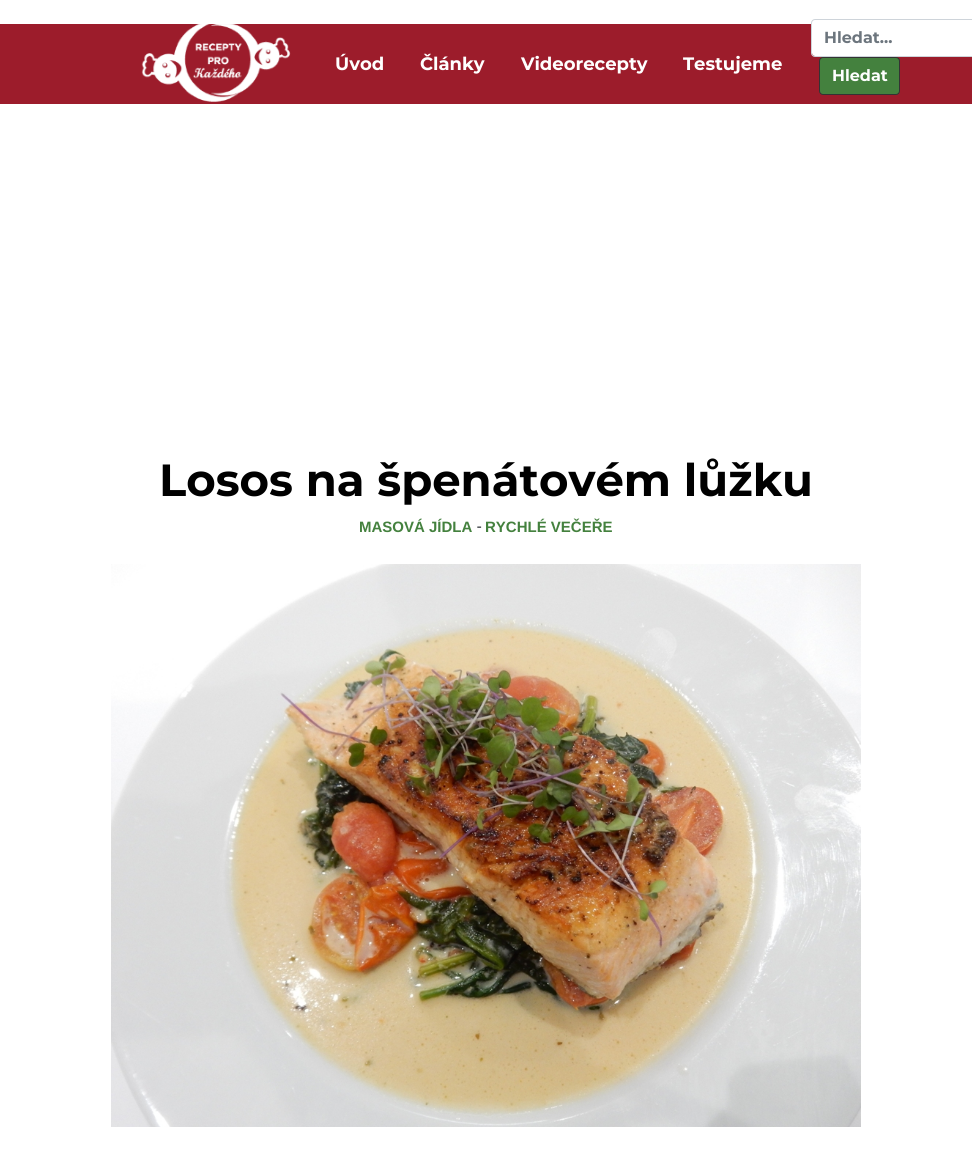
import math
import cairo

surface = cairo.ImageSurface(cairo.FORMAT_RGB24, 972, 1163)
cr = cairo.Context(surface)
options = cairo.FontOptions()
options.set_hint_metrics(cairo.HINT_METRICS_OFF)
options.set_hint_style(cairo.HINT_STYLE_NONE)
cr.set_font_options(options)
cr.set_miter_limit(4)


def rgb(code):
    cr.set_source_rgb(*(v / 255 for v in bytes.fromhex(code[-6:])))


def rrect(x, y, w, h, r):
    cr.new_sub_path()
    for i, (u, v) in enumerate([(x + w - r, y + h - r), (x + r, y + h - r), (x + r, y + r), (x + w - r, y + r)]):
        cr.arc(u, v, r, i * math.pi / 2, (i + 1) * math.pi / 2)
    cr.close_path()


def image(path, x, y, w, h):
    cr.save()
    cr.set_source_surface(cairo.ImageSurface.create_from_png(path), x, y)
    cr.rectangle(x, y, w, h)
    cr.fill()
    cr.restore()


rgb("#ffffff")
cr.paint()
rgb("#9c1c2b")
cr.rectangle(0, 24, 972, 80)
cr.fill()
image("img/1.png", 141, 24, 150, 78)
rgb("#ffffff")
rrect(812, 20, 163, 36, 3)
cr.fill()
rrect(811.5, 19.5, 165, 37, 3.5)
rgb("#ced4da")
cr.set_line_width(1)
cr.stroke()
rgb("#44813e")
rrect(819.5, 57.5, 80, 37, 3.5)
cr.fill_preserve()
rgb("#333333")
cr.stroke()
image("img/2.png", 111, 564, 750, 563)
cr.select_font_face("Montserrat Thin")
cr.set_font_size(18)
rgb("#ffffff")
for x, y, s in [
    (335, 70, "Úvod"),
    (420, 70, "Články"),
    (521, 70, "Videorecepty"),
    (683, 70, "Testujeme"),
]:
    cr.move_to(x, y)
    cr.show_text(s)
cr.set_font_size(16)
rgb("#6c757d")
cr.move_to(824, 43)
cr.show_text("Hledat...")
rgb("#ffffff")
cr.move_to(832, 81)
cr.show_text("Hledat")
cr.set_font_size(45)
rgb("#000000")
cr.move_to(159, 496)
cr.show_text("Losos na špenátovém lůžku")
cr.select_font_face("Liberation Sans", cairo.FONT_SLANT_NORMAL, cairo.FONT_WEIGHT_BOLD)
cr.set_font_size(15)
rgb("#44813e")
cr.move_to(359, 532)
cr.show_text("MASOVÁ JÍDLA")
cr.select_font_face("Roboto")
cr.set_font_size(16)
rgb("#212529")
cr.move_to(477, 532)
cr.show_text("-")
cr.select_font_face("Liberation Sans", cairo.FONT_SLANT_NORMAL, cairo.FONT_WEIGHT_BOLD)
cr.set_font_size(15)
rgb("#44813e")
cr.move_to(485, 532)
cr.show_text("RYCHLÉ VEČEŘE")
surface.write_to_png("page.png")
